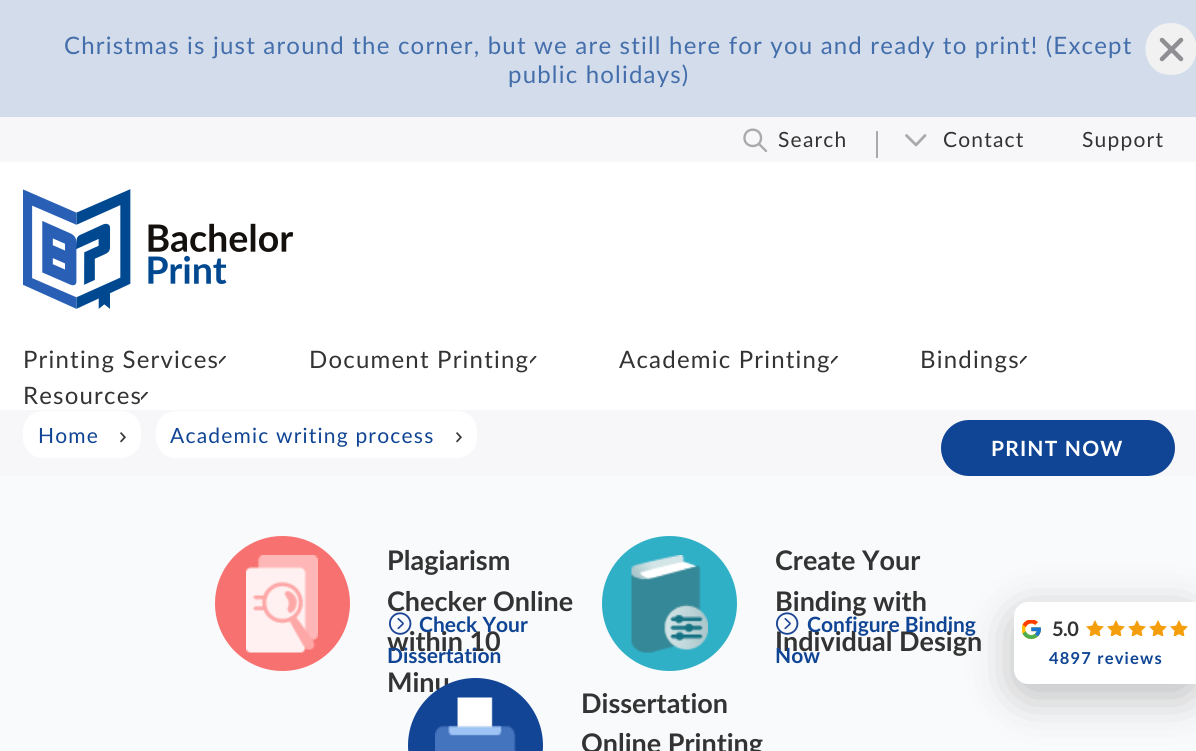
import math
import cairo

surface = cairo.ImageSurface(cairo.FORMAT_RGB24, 1196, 751)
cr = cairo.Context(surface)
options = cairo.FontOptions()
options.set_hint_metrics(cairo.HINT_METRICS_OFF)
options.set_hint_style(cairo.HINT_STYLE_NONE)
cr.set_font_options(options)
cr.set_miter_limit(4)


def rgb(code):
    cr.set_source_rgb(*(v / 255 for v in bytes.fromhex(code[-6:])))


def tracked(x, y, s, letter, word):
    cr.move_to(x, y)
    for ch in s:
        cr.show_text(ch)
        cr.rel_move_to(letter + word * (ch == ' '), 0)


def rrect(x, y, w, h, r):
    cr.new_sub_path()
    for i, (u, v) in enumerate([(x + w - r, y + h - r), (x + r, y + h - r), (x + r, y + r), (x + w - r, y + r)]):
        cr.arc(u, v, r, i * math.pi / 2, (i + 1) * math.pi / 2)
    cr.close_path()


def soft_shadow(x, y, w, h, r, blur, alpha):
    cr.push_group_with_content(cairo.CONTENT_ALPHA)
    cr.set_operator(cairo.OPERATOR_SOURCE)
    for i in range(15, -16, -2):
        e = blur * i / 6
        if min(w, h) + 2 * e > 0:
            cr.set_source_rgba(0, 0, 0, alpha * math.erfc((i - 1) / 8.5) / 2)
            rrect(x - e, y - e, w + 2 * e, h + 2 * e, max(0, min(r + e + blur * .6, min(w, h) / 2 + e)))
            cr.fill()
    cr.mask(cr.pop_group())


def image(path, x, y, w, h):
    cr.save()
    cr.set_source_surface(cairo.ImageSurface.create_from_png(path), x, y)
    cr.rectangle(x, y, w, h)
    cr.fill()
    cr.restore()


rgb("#d2dceb")
cr.paint()
rgb("#f1f1f1")
cr.new_path()
cr.move_to(1171, 23)
cr.curve_to(1137, 23, 1137, 75, 1171, 75)
cr.curve_to(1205, 75, 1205, 23, 1171, 23)
cr.close_path()
cr.fill()
cr.new_path()
cr.move_to(1181, 40)
cr.line_to(1162, 59)
cr.move_to(1162, 40)
cr.line_to(1181, 59)
rgb("#8e8e93")
cr.set_line_width(4.5)
cr.set_line_cap(cairo.LINE_CAP_ROUND)
cr.set_line_join(cairo.LINE_JOIN_ROUND)
cr.stroke()
rgb("#f7f7f9")
cr.rectangle(0, 117, 1196, 45)
cr.fill()
cr.new_path()
cr.move_to(766, 151)
cr.line_to(759, 144)
cr.move_to(761, 138)
cr.curve_to(761, 149, 744, 148.5, 744.5, 137.5)
cr.curve_to(745, 127, 761, 127, 761, 138)
cr.close_path()
rgb("#aaaaad")
cr.set_line_width(2.4)
cr.stroke()
cr.rectangle(876, 131, 2, 27)
cr.fill()
cr.new_path()
cr.move_to(906.5, 135.5)
cr.line_to(916, 145)
cr.line_to(925, 135.5)
cr.set_line_width(2.8)
cr.stroke()
rgb("#ffffff")
cr.rectangle(0, 162, 1196, 248)
cr.fill()
image("img/1.png", 23, 189, 271, 120)
cr.save()
cr.rectangle(219, 356, 8, 9)
cr.clip()
cr.new_path()
cr.move_to(213, 356.5)
cr.line_to(219, 363)
cr.line_to(225, 356.5)
rgb("#333333")
cr.set_line_width(1.9)
cr.stroke()
cr.restore()
cr.save()
cr.rectangle(530, 356, 7, 9)
cr.clip()
cr.new_path()
cr.move_to(523.5, 356.5)
cr.line_to(529.5, 363)
cr.line_to(535.5, 356.5)
rgb("#333333")
cr.set_line_width(1.9)
cr.stroke()
cr.restore()
cr.save()
cr.rectangle(831, 356, 8, 9)
cr.clip()
cr.new_path()
cr.move_to(825, 356.5)
cr.line_to(831, 363)
cr.line_to(837, 356.5)
rgb("#333333")
cr.set_line_width(1.9)
cr.stroke()
cr.restore()
cr.save()
cr.rectangle(1020, 356, 8, 9)
cr.clip()
cr.new_path()
cr.move_to(1014, 356.5)
cr.line_to(1020, 363)
cr.line_to(1026, 356.5)
rgb("#333333")
cr.set_line_width(1.9)
cr.stroke()
cr.restore()
cr.save()
cr.rectangle(141, 392, 8, 9)
cr.clip()
cr.new_path()
cr.move_to(135, 392.5)
cr.line_to(141, 399)
cr.line_to(147, 392.5)
rgb("#333333")
cr.set_line_width(1.9)
cr.stroke()
cr.restore()
rgb("#f7f7f9")
cr.rectangle(0, 410, 1196, 66)
cr.fill()
rgb("#0f4594")
rrect(941, 420, 234, 56, 28)
cr.fill()
rgb("#ffffff")
rrect(23, 411, 118, 47, 20)
cr.fill()
image("img/2.png", 120, 432, 6, 11)
rrect(156, 411, 321, 47, 20)
cr.fill()
image("img/2.png", 456, 432, 6, 11)
rgb("#f9fafb")
cr.rectangle(0, 476, 1196, 275)
cr.fill()
rgb("#f87171")
cr.arc(282.5, 603.5, 67.5, 0, 2 * math.pi)
cr.fill()
image("img/3.png", 246, 555, 72, 98)
rgb("#30b0c7")
cr.arc(669.5, 603.5, 67.5, 0, 2 * math.pi)
cr.fill()
image("img/5.png", 631, 555, 77, 98)
rgb("#000000")
soft_shadow(1014, 614, 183, 82, 14, 22.5, 0.25)
rgb("#ffffff")
cr.new_path()
cr.move_to(1028, 602)
cr.line_to(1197, 602)
cr.line_to(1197, 684)
cr.line_to(1028, 684)
cr.curve_to(1020.5, 684, 1014, 677.5, 1014, 670)
cr.line_to(1014, 616)
cr.curve_to(1014, 608.5, 1020.5, 602, 1028, 602)
cr.close_path()
cr.fill()
image("img/8.png", 1022, 620, 19, 19)
image("img/9.png", 1086, 620, 18, 16)
image("img/9.png", 1107, 620, 18, 16)
image("img/9.png", 1128, 620, 18, 16)
image("img/9.png", 1149, 620, 18, 16)
image("img/9.png", 1170, 620, 18, 16)
cr.select_font_face("Lato")
cr.set_font_size(24)
rgb("#446eab")
tracked(64, 54, "Christmas is just around the corner, but we are still here for you and ready to print! (Except", 1.2, 0)
tracked(508, 83, "public holidays)", 1.2, 0)
cr.set_font_size(21)
rgb("#333333")
for x, y, s in [
    (778, 147, "Search"),
    (943, 147, "Contact"),
    (1082, 147, "Support"),
]:
    tracked(x, y, s, 1.2, 0)
cr.set_font_size(24)
for x, y, s in [
    (23, 368, "Printing Services"),
    (309, 368, "Document Printing"),
    (619, 368, "Academic Printing"),
    (920, 368, "Bindings"),
    (23, 404, "Resources"),
]:
    tracked(x, y, s, 1.2, 0)
cr.select_font_face("Lato", cairo.FONT_SLANT_NORMAL, cairo.FONT_WEIGHT_BOLD)
cr.set_font_size(21)
rgb("#ffffff")
tracked(991, 456, "PRINT NOW", 1.2, 0)
cr.select_font_face("Lato")
rgb("#0f4594")
tracked(38, 443, "Home", 1.2, 0)
tracked(170, 443, "Academic writing process", 1.2, 0)
cr.select_font_face("Lato", cairo.FONT_SLANT_NORMAL, cairo.FONT_WEIGHT_BOLD)
cr.set_font_size(27)
rgb("#333333")
for x, y, s in [
    (387, 570, "Plagiarism"),
    (387, 611, "Checker Online"),
    (387, 651, "within 10"),
    (387, 692, "Minu"),
]:
    cr.move_to(x, y)
    cr.show_text(s)
image("img/4.png", 389, 612, 23, 23)
cr.set_font_size(21)
rgb("#0f4594")
cr.move_to(419, 632)
cr.show_text("Check Your")
cr.move_to(387, 663)
cr.show_text("Dissertation")
cr.set_font_size(27)
rgb("#333333")
for x, y, s in [
    (775, 570, "Create Your"),
    (775, 611, "Binding with"),
    (775, 651, "Individual Design"),
]:
    cr.move_to(x, y)
    cr.show_text(s)
image("img/6.png", 776, 612, 23, 23)
cr.set_font_size(21)
rgb("#0f4594")
cr.move_to(807, 632)
cr.show_text("Configure Binding")
cr.move_to(775, 663)
cr.show_text("Now")
rgb("#124596")
cr.new_path()
cr.arc(475.5, 745.5, 67.5, 0, 2 * math.pi)
cr.fill()
image("img/7.png", 435, 697, 81, 54)
cr.set_font_size(27)
rgb("#333333")
cr.move_to(581, 713)
cr.show_text("Dissertation")
cr.move_to(581, 753)
cr.show_text("Online Printing")
cr.set_font_size(20)
tracked(1052, 636, "5.0", -0.5, 0)
cr.set_font_size(16.5)
rgb("#0f4594")
tracked(1049, 664, "4897 reviews", 1.2, 0)
surface.write_to_png("page.png")
